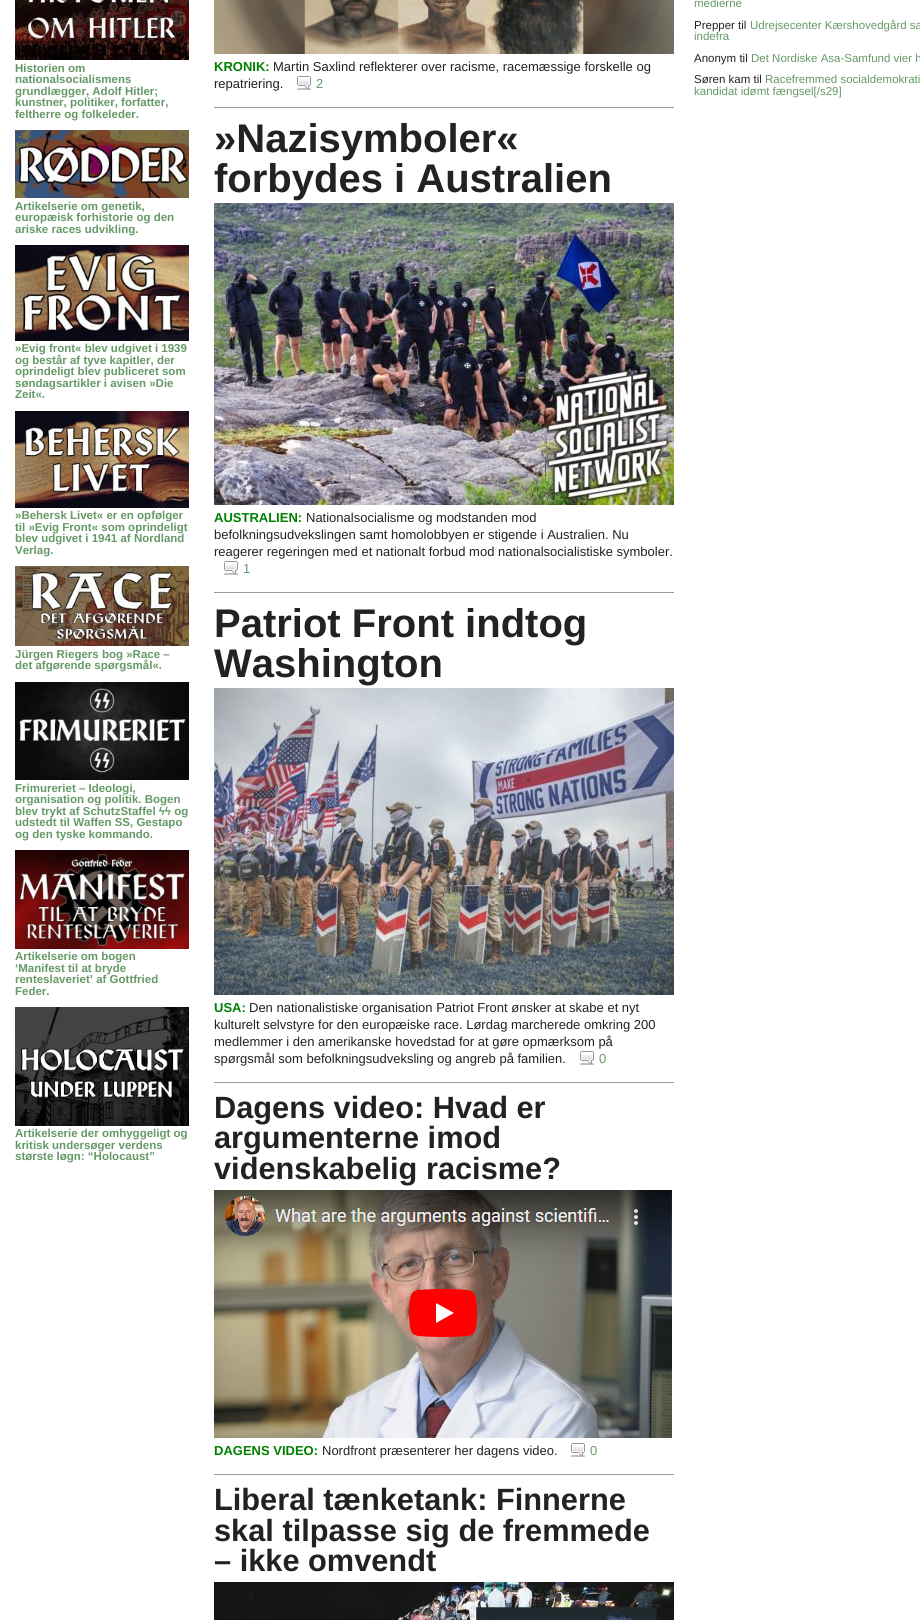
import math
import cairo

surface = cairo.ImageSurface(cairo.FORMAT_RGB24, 920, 1620)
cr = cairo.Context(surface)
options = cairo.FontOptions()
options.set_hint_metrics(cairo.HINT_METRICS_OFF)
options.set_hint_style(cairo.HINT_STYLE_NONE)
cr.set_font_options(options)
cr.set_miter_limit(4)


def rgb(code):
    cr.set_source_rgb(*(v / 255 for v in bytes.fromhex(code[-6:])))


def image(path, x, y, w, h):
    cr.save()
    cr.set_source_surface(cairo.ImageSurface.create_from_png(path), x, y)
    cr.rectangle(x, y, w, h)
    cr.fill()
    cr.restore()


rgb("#ffffff")
cr.paint()
image("img/1.png", 15, 0, 174, 60)
image("img/2.png", 15, 130, 174, 68)
image("img/3.png", 15, 245, 174, 96)
image("img/4.png", 15, 411, 174, 97)
image("img/5.png", 15, 566, 174, 80)
image("img/6.png", 15, 682, 174, 98)
image("img/7.png", 15, 850, 174, 99)
image("img/8.png", 15, 1007, 174, 119)
image("img/9.png", 214, 0, 460, 54)
image("img/10.png", 297, 76, 14, 14)
rgb("#999999")
cr.rectangle(214, 107, 460, 1)
cr.fill()
image("img/11.png", 214, 203, 460, 302)
image("img/10.png", 224, 561, 14, 14)
cr.rectangle(214, 592, 460, 1)
cr.fill()
image("img/12.png", 214, 688, 460, 307)
image("img/10.png", 580, 1051, 14, 14)
cr.rectangle(214, 1082, 460, 1)
cr.fill()
image("img/13.png", 214, 1190, 458, 248)
image("img/10.png", 571, 1443, 14, 14)
cr.rectangle(214, 1474, 460, 1)
cr.fill()
image("img/14.png", 214, 1582, 460, 38)
cr.select_font_face("Liberation Sans")
cr.set_font_size(11.5)
rgb("#659966")
cr.move_to(694, 7)
cr.show_text("medierne")
rgb("#222222")
cr.move_to(694, 29)
cr.show_text("Prepper til")
rgb("#659966")
cr.move_to(750, 29)
cr.show_text("Udrejsecenter Kærshovedgård sa")
cr.move_to(694, 40)
cr.show_text("indefra")
rgb("#222222")
cr.move_to(694, 62)
cr.show_text("Anonym til")
rgb("#659966")
cr.move_to(751, 62)
cr.show_text("Det Nordiske Asa-Samfund vier h")
rgb("#222222")
cr.move_to(694, 83)
cr.show_text("Søren kam til")
rgb("#659966")
cr.move_to(765, 83)
cr.show_text("Racefremmed socialdemokrati")
cr.move_to(694, 95)
cr.show_text("kandidat idømt fængsel[/s29]")
cr.select_font_face("Liberation Sans", cairo.FONT_SLANT_NORMAL, cairo.FONT_WEIGHT_BOLD)
for x, y, s in [
    (15, 72, "Historien om"),
    (15, 83, "nationalsocialismens"),
    (15, 95, "grundlægger, Adolf Hitler;"),
    (15, 106, "kunstner, politiker, forfatter,"),
    (15, 118, "feltherre og folkeleder."),
    (15, 210, "Artikelserie om genetik,"),
    (15, 221, "europæisk forhistorie og den"),
    (15, 233, "ariske races udvikling."),
    (15, 352, "»Evig front« blev udgivet i 1939"),
    (15, 364, "og består af tyve kapitler, der"),
    (15, 375, "oprindeligt blev publiceret som"),
    (15, 387, "søndagsartikler i avisen »Die"),
    (15, 398, "Zeit«."),
    (15, 519, "»Behersk Livet« er en opfølger"),
    (15, 531, "til »Evig Front« som oprindeligt"),
    (15, 542, "blev udgivet i 1941 af Nordland"),
    (15, 554, "Verlag."),
    (15, 658, "Jürgen Riegers bog »Race –"),
    (15, 669, "det afgørende spørgsmål«."),
    (15, 792, "Frimureriet – Ideologi,"),
    (15, 803, "organisation og politik. Bogen"),
    (15, 815, "blev trykt af SchutzStaffel ϟϟ og"),
    (15, 826, "udstedt til Waffen SS, Gestapo"),
    (15, 838, "og den tyske kommando."),
    (15, 960, "Artikelserie om bogen"),
    (15, 972, "‘Manifest til at bryde"),
    (15, 983, "renteslaveriet’ af Gottfried"),
    (15, 995, "Feder."),
    (15, 1137, "Artikelserie der omhyggeligt og"),
    (15, 1149, "kritisk undersøger verdens"),
    (15, 1160, "største løgn: “Holocaust”"),
]:
    cr.move_to(x, y)
    cr.show_text(s)
cr.set_font_size(13)
rgb("#008000")
cr.move_to(214, 71)
cr.show_text("KRONIK:")
cr.select_font_face("Liberation Sans")
rgb("#222222")
cr.move_to(273, 71)
cr.show_text("Martin Saxlind reflekterer over racisme, racemæssige forskelle og")
cr.move_to(214, 88)
cr.show_text("repatriering.")
rgb("#659966")
cr.move_to(316, 88)
cr.show_text("2")
cr.select_font_face("Liberation Sans", cairo.FONT_SLANT_NORMAL, cairo.FONT_WEIGHT_BOLD)
cr.set_font_size(40)
rgb("#222222")
cr.move_to(214, 152)
cr.show_text("»Nazisymboler«")
cr.move_to(214, 192)
cr.show_text("forbydes i Australien")
cr.set_font_size(13)
rgb("#008000")
cr.move_to(214, 522)
cr.show_text("AUSTRALIEN:")
cr.select_font_face("Liberation Sans")
rgb("#222222")
for x, y, s in [
    (306, 522, "Nationalsocialisme og modstanden mod"),
    (214, 539, "befolkningsudvekslingen samt homolobbyen er stigende i Australien. Nu"),
    (214, 556, "reagerer regeringen med et nationalt forbud mod nationalsocialistiske symboler."),
]:
    cr.move_to(x, y)
    cr.show_text(s)
rgb("#659966")
cr.move_to(243, 573)
cr.show_text("1")
cr.select_font_face("Liberation Sans", cairo.FONT_SLANT_NORMAL, cairo.FONT_WEIGHT_BOLD)
cr.set_font_size(40)
rgb("#222222")
cr.move_to(214, 637)
cr.show_text("Patriot Front indtog")
cr.move_to(214, 677)
cr.show_text("Washington")
cr.set_font_size(13)
rgb("#008000")
cr.move_to(214, 1012)
cr.show_text("USA:")
cr.select_font_face("Liberation Sans")
rgb("#222222")
for x, y, s in [
    (249, 1012, "Den nationalistiske organisation Patriot Front ønsker at skabe et nyt"),
    (214, 1029, "kulturelt selvstyre for den europæiske race. Lørdag marcherede omkring 200"),
    (214, 1046, "medlemmer i den amerikanske hovedstad for at gøre opmærksom på"),
    (214, 1063, "spørgsmål som befolkningsudveksling og angreb på familien."),
]:
    cr.move_to(x, y)
    cr.show_text(s)
rgb("#659966")
cr.move_to(599, 1063)
cr.show_text("0")
cr.select_font_face("Liberation Sans", cairo.FONT_SLANT_NORMAL, cairo.FONT_WEIGHT_BOLD)
cr.set_font_size(30.75)
rgb("#222222")
for x, y, s in [
    (214, 1118, "Dagens video: Hvad er"),
    (214, 1148, "argumenterne imod"),
    (214, 1179, "videnskabelig racisme?"),
]:
    cr.move_to(x, y)
    cr.show_text(s)
cr.set_font_size(13)
rgb("#008000")
cr.move_to(214, 1455)
cr.show_text("DAGENS VIDEO:")
cr.select_font_face("Liberation Sans")
rgb("#222222")
cr.move_to(322, 1455)
cr.show_text("Nordfront præsenterer her dagens video.")
rgb("#659966")
cr.move_to(590, 1455)
cr.show_text("0")
cr.select_font_face("Liberation Sans", cairo.FONT_SLANT_NORMAL, cairo.FONT_WEIGHT_BOLD)
cr.set_font_size(30.75)
rgb("#222222")
for x, y, s in [
    (214, 1510, "Liberal tænketank: Finnerne"),
    (214, 1541, "skal tilpasse sig de fremmede"),
    (214, 1571, "– ikke omvendt"),
]:
    cr.move_to(x, y)
    cr.show_text(s)
surface.write_to_png("page.png")
